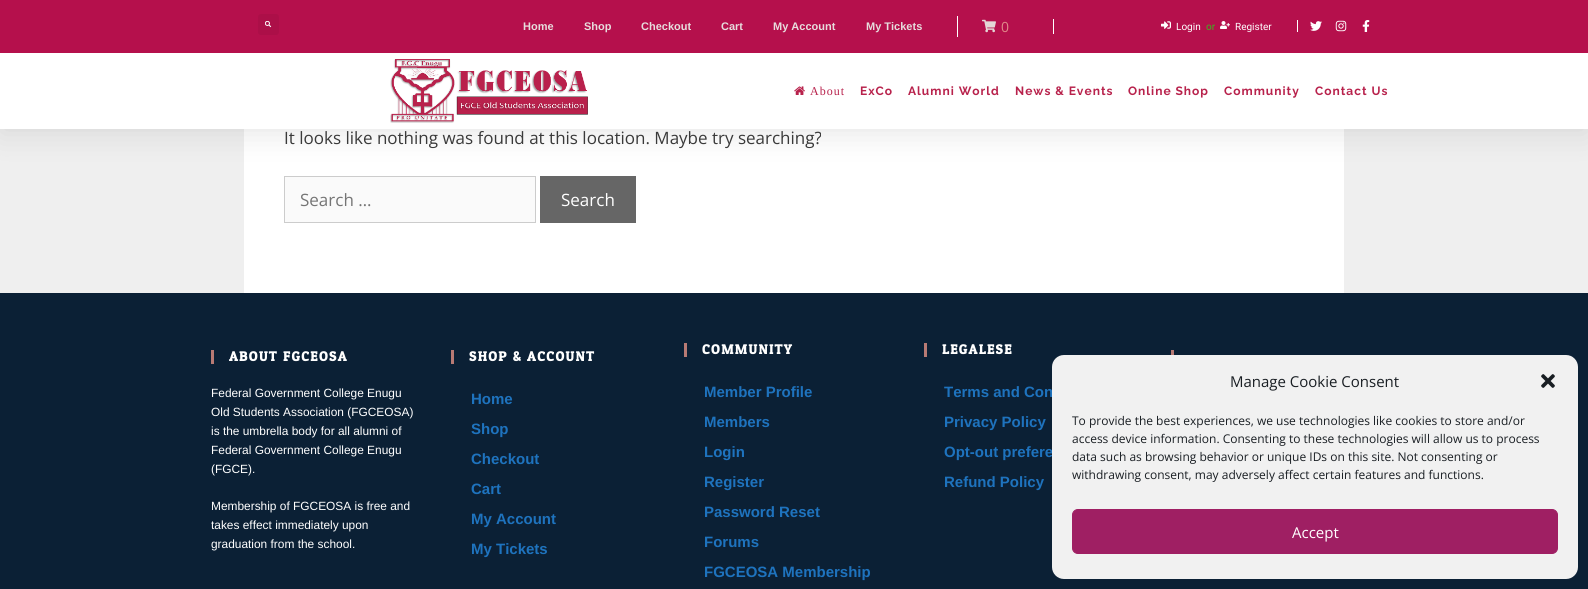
import math
import cairo

surface = cairo.ImageSurface(cairo.FORMAT_RGB24, 1588, 589)
cr = cairo.Context(surface)
options = cairo.FontOptions()
options.set_hint_metrics(cairo.HINT_METRICS_OFF)
options.set_hint_style(cairo.HINT_STYLE_NONE)
cr.set_font_options(options)
cr.set_miter_limit(4)


def rgb(code):
    cr.set_source_rgb(*(v / 255 for v in bytes.fromhex(code[-6:])))


def tracked(x, y, s, letter, word):
    cr.move_to(x, y)
    for ch in s:
        cr.show_text(ch)
        cr.rel_move_to(letter + word * (ch == ' '), 0)


def rrect(x, y, w, h, r):
    cr.new_sub_path()
    for i, (u, v) in enumerate([(x + w - r, y + h - r), (x + r, y + h - r), (x + r, y + r), (x + w - r, y + r)]):
        cr.arc(u, v, r, i * math.pi / 2, (i + 1) * math.pi / 2)
    cr.close_path()


def soft_shadow(x, y, w, h, r, blur, alpha):
    cr.push_group_with_content(cairo.CONTENT_ALPHA)
    cr.set_operator(cairo.OPERATOR_SOURCE)
    for i in range(15, -16, -2):
        e = blur * i / 6
        if min(w, h) + 2 * e > 0:
            cr.set_source_rgba(0, 0, 0, alpha * math.erfc((i - 1) / 8.5) / 2)
            rrect(x - e, y - e, w + 2 * e, h + 2 * e, max(0, min(r + e + blur * .6, min(w, h) / 2 + e)))
            cr.fill()
    cr.mask(cr.pop_group())


def image(path, x, y, w, h):
    cr.save()
    cr.set_source_surface(cairo.ImageSurface.create_from_png(path), x, y)
    cr.rectangle(x, y, w, h)
    cr.fill()
    cr.restore()


rgb("#efefef")
cr.paint()
rgb("#ffffff")
cr.rectangle(244, 129, 1100, 164)
cr.fill()
rgb("#fafafa")
cr.rectangle(284.5, 176.5, 251, 46)
cr.fill_preserve()
rgb("#cccccc")
cr.set_line_width(1)
cr.stroke()
rgb("#666666")
cr.rectangle(540, 176, 96, 47)
cr.fill()
rgb("#000000")
soft_shadow(0, 5, 1588, 129, 0, 15, 0.1)
rgb("#b5104c")
cr.rectangle(0, 0, 1588, 53)
cr.fill()
rgb("#ac0f48")
rrect(258, 14, 21, 21, 3)
cr.fill()
image("img/1.png", 265, 21, 7, 7)
rgb("#ffffff")
cr.rectangle(957, 16, 1, 21)
cr.fill()
image("img/2.png", 982, 19, 14, 14)
cr.rectangle(1053, 19, 1, 15)
cr.fill()
image("img/3.png", 1161, 21, 10, 8)
image("img/4.png", 1220, 21, 10, 8)
cr.rectangle(1297, 20, 1, 12)
cr.fill()
image("img/5.png", 1310, 21, 12, 10)
image("img/6.png", 1335, 20, 12, 12)
image("img/7.png", 1362, 20, 8, 12)
cr.rectangle(0, 53, 1588, 76)
cr.fill()
image("img/8.png", 390, 59, 198, 64)
image("img/9.png", 794, 86, 11, 9)
for x, y, w, h, color in [
    (0, 293, 1588, 296, "#0b2035"),
    (211, 350, 3, 14, "#b87a74"),
    (451, 350, 3, 14, "#b87a74"),
    (684, 343, 3, 14, "#b87a74"),
    (924, 343, 3, 14, "#b87a74"),
    (1171, 350, 3, 5, "#b87a74"),
]:
    rgb(color)
    cr.rectangle(x, y, w, h)
    cr.fill()
cr.select_font_face("Liberation Sans", cairo.FONT_SLANT_NORMAL, cairo.FONT_WEIGHT_BOLD)
cr.set_font_size(11)
rgb("#e7dddd")
for x, y, s in [
    (523, 30, "Home"),
    (584, 30, "Shop"),
    (641, 30, "Checkout"),
    (721, 30, "Cart"),
    (773, 30, "My Account"),
    (866, 30, "My Tickets"),
]:
    cr.move_to(x, y)
    cr.show_text(s)
cr.select_font_face("Open Sans")
cr.set_font_size(14)
rgb("#e18989")
cr.move_to(1001, 32)
cr.show_text("0")
cr.select_font_face("Roboto")
cr.set_font_size(10)
rgb("#ffffff")
cr.move_to(1176, 30)
cr.show_text("Login")
rgb("#39b61e")
cr.move_to(1206, 30)
cr.show_text("or")
rgb("#ffffff")
cr.move_to(1235, 30)
cr.show_text("Register")
cr.select_font_face("Liberation Serif")
cr.set_font_size(12)
rgb("#b8224c")
tracked(810, 95, "About", 1, 0)
cr.select_font_face("Raleway", cairo.FONT_SLANT_NORMAL, cairo.FONT_WEIGHT_BOLD)
for x, y, s in [
    (860, 95, "ExCo"),
    (908, 95, "Alumni World"),
    (1015, 95, "News & Events"),
    (1128, 95, "Online Shop"),
    (1224, 95, "Community"),
    (1315, 95, "Contact Us"),
]:
    tracked(x, y, s, 1, 0)
cr.select_font_face("Open Sans")
cr.set_font_size(17)
rgb("#3a3a3a")
cr.move_to(284, 144)
cr.show_text("It looks like nothing was found at this location. Maybe try searching?")
rgb("#757575")
cr.move_to(300, 206)
cr.show_text("Search …")
rgb("#ffffff")
cr.move_to(561, 206)
cr.show_text("Search")
cr.select_font_face("Odor Mean Chey", cairo.FONT_SLANT_NORMAL, cairo.FONT_WEIGHT_BOLD)
cr.set_font_size(13.5)
tracked(229, 361, "ABOUT FGCEOSA", 1.4, 0)
cr.select_font_face("Liberation Sans")
cr.set_font_size(11.9)
for x, y, s in [
    (211, 397, "Federal Government College Enugu"),
    (211, 416, "Old Students Association (FGCEOSA)"),
    (211, 435, "is the umbrella body for all alumni of"),
    (211, 454, "Federal Government College Enugu"),
    (211, 473, "(FGCE)."),
    (211, 510, "Membership of FGCEOSA is free and"),
    (211, 529, "takes effect immediately upon"),
    (211, 548, "graduation from the school."),
]:
    cr.move_to(x, y)
    cr.show_text(s)
cr.select_font_face("Odor Mean Chey", cairo.FONT_SLANT_NORMAL, cairo.FONT_WEIGHT_BOLD)
cr.set_font_size(13.5)
tracked(469, 361, "SHOP & ACCOUNT", 1.4, 0)
cr.select_font_face("Liberation Sans", cairo.FONT_SLANT_NORMAL, cairo.FONT_WEIGHT_BOLD)
cr.set_font_size(15)
rgb("#1e73be")
for x, y, s in [
    (471, 404, "Home"),
    (471, 434, "Shop"),
    (471, 464, "Checkout"),
    (471, 494, "Cart"),
    (471, 524, "My Account"),
    (471, 554, "My Tickets"),
]:
    cr.move_to(x, y)
    cr.show_text(s)
cr.select_font_face("Odor Mean Chey", cairo.FONT_SLANT_NORMAL, cairo.FONT_WEIGHT_BOLD)
cr.set_font_size(13.5)
rgb("#ffffff")
tracked(702, 354, "COMMUNITY", 1.4, 0)
cr.select_font_face("Liberation Sans", cairo.FONT_SLANT_NORMAL, cairo.FONT_WEIGHT_BOLD)
cr.set_font_size(15)
rgb("#1e73be")
for x, y, s in [
    (704, 397, "Member Profile"),
    (704, 427, "Members"),
    (704, 457, "Login"),
    (704, 487, "Register"),
    (704, 517, "Password Reset"),
    (704, 547, "Forums"),
    (704, 577, "FGCEOSA Membership"),
]:
    cr.move_to(x, y)
    cr.show_text(s)
cr.select_font_face("Odor Mean Chey", cairo.FONT_SLANT_NORMAL, cairo.FONT_WEIGHT_BOLD)
cr.set_font_size(13.5)
rgb("#ffffff")
tracked(942, 354, "LEGALESE", 1.4, 0)
cr.select_font_face("Liberation Sans", cairo.FONT_SLANT_NORMAL, cairo.FONT_WEIGHT_BOLD)
cr.set_font_size(15)
rgb("#1e73be")
for x, y, s in [
    (944, 397, "Terms and Con"),
    (944, 427, "Privacy Policy"),
    (944, 457, "Opt-out prefere"),
    (944, 487, "Refund Policy"),
]:
    cr.move_to(x, y)
    cr.show_text(s)
rgb("#f1f1f1")
rrect(1052, 355, 526, 224, 12)
cr.fill()
cr.select_font_face("Open Sans")
rgb("#191e23")
cr.move_to(1230, 387)
cr.show_text("Manage Cookie Consent")
image("img/10.png", 1541, 374, 14, 14)
cr.set_font_size(12)
for x, y, s in [
    (1072, 425, "To provide the best experiences, we use technologies like cookies to store and/or"),
    (1072, 443, "access device information. Consenting to these technologies will allow us to process"),
    (1072, 461, "data such as browsing behavior or unique IDs on this site. Not consenting or"),
    (1072, 479, "withdrawing consent, may adversely affect certain features and functions."),
]:
    cr.move_to(x, y)
    cr.show_text(s)
rgb("#9f1f63")
rrect(1072.5, 509.5, 485, 44, 5.5)
cr.fill_preserve()
cr.stroke()
cr.set_font_size(15)
rgb("#ffffff")
cr.move_to(1292, 538)
cr.show_text("Accept")
surface.write_to_png("page.png")
